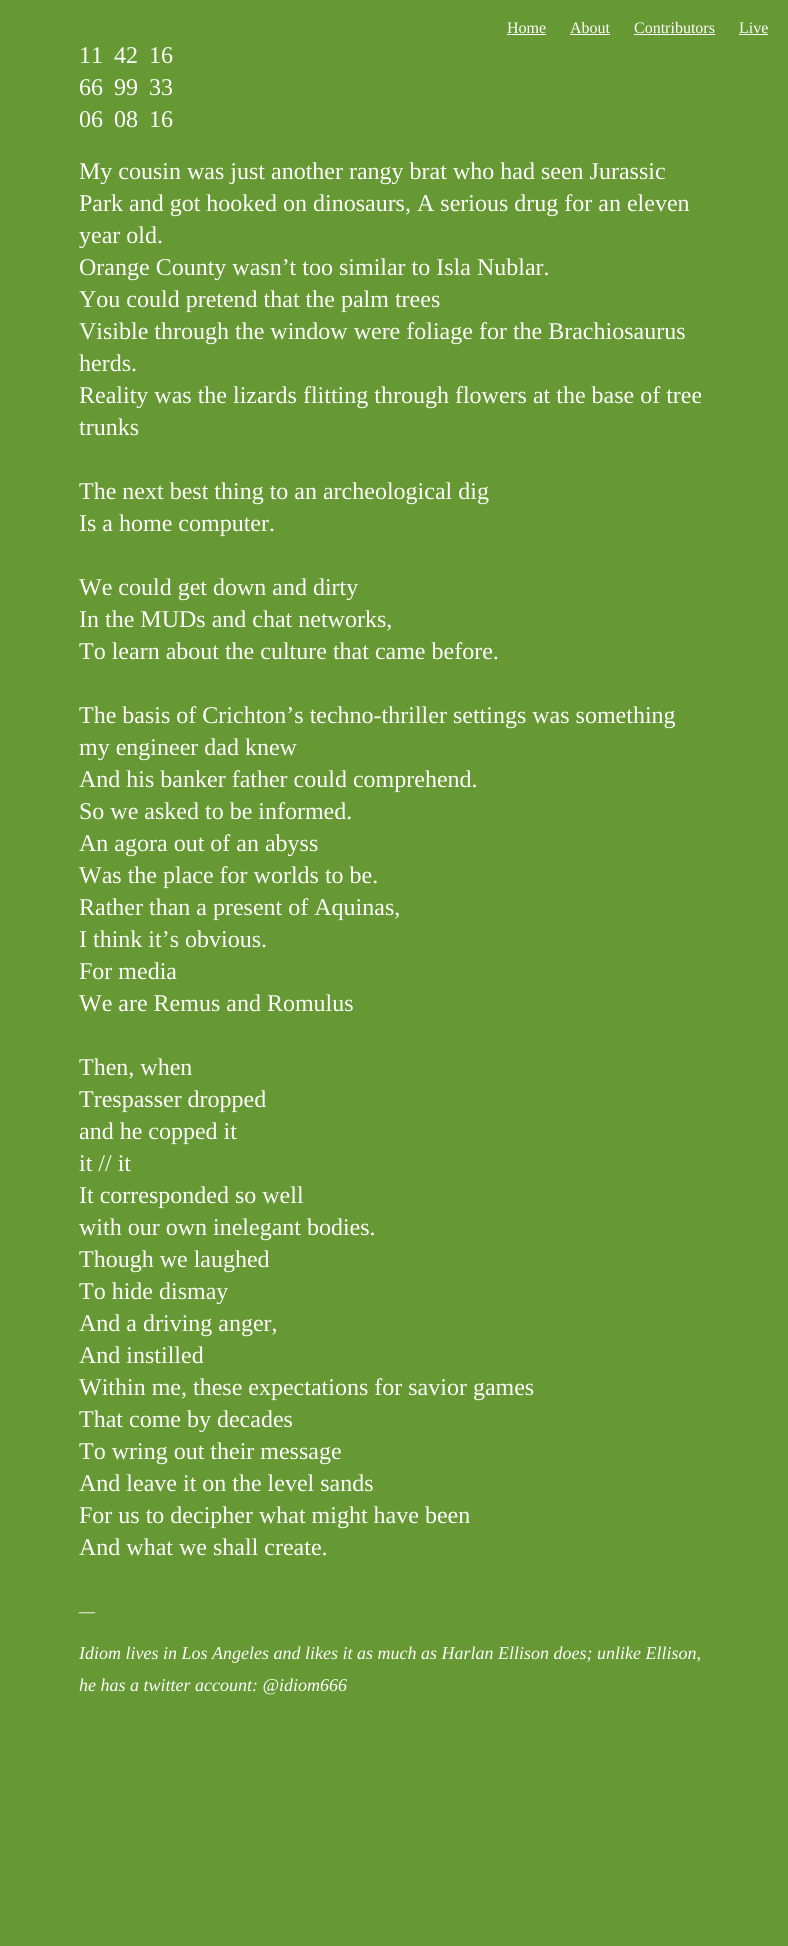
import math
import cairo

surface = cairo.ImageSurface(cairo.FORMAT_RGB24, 788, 1946)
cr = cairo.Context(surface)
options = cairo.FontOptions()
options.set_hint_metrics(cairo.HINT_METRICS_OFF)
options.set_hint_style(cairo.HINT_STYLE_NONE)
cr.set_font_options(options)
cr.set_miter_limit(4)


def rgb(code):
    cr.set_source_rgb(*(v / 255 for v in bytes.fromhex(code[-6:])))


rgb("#669933")
cr.paint()
for x, y, w, h, color in [
    (507, 34, 39, 1, "#ffffff"),
    (570, 34, 40, 1, "#ffffff"),
    (634, 34, 81, 1, "#ffffff"),
    (739, 34, 29, 1, "#ffffff"),
]:
    rgb(color)
    cr.rectangle(x, y, w, h)
    cr.fill()
cr.select_font_face("Liberation Serif")
cr.set_font_size(16)
for x, y, s in [
    (507, 33, "Home"),
    (570, 33, "About"),
    (634, 33, "Contributors"),
    (739, 33, "Live"),
]:
    cr.move_to(x, y)
    cr.show_text(s)
cr.set_font_size(24)
for x, y, s in [
    (79, 63, "11"),
    (79, 95, "66"),
    (79, 127, "06"),
    (114, 63, "42"),
    (114, 95, "99"),
    (114, 127, "08"),
    (149, 63, "16"),
    (149, 95, "33"),
    (149, 127, "16"),
    (79, 179, "My cousin was just another rangy brat who had seen Jurassic"),
    (79, 211, "Park and got hooked on dinosaurs, A serious drug for an eleven"),
    (79, 243, "year old."),
    (79, 275, "Orange County wasn’t too similar to Isla Nublar."),
    (79, 307, "You could pretend that the palm trees"),
    (79, 339, "Visible through the window were foliage for the Brachiosaurus"),
    (79, 371, "herds."),
    (79, 403, "Reality was the lizards flitting through flowers at the base of tree"),
    (79, 435, "trunks"),
    (79, 499, "The next best thing to an archeological dig"),
    (79, 531, "Is a home computer."),
    (79, 595, "We could get down and dirty"),
    (79, 627, "In the MUDs and chat networks,"),
    (79, 659, "To learn about the culture that came before."),
    (79, 723, "The basis of Crichton’s techno-thriller settings was something"),
    (79, 755, "my engineer dad knew"),
    (79, 787, "And his banker father could comprehend."),
    (79, 819, "So we asked to be informed."),
    (79, 851, "An agora out of an abyss"),
    (79, 883, "Was the place for worlds to be."),
    (79, 915, "Rather than a present of Aquinas,"),
    (79, 947, "I think it’s obvious."),
    (79, 979, "For media"),
    (79, 1011, "We are Remus and Romulus"),
    (79, 1075, "Then, when"),
    (79, 1107, "Trespasser dropped"),
    (79, 1139, "and he copped it"),
    (79, 1171, "it // it"),
    (79, 1203, "It corresponded so well"),
    (79, 1235, "with our own inelegant bodies."),
    (79, 1267, "Though we laughed"),
    (79, 1299, "To hide dismay"),
    (79, 1331, "And a driving anger,"),
    (79, 1363, "And instilled"),
    (79, 1395, "Within me, these expectations for savior games"),
    (79, 1427, "That come by decades"),
    (79, 1459, "To wring out their message"),
    (79, 1491, "And leave it on the level sands"),
    (79, 1523, "For us to decipher what might have been"),
    (79, 1555, "And what we shall create."),
]:
    cr.move_to(x, y)
    cr.show_text(s)
cr.select_font_face("Liberation Serif", cairo.FONT_SLANT_ITALIC)
cr.set_font_size(18)
for x, y, s in [
    (79, 1617, "—"),
    (79, 1659, "Idiom lives in Los Angeles and likes it as much as Harlan Ellison does; unlike Ellison,"),
    (79, 1691, "he has a twitter account: @idiom666"),
]:
    cr.move_to(x, y)
    cr.show_text(s)
surface.write_to_png("page.png")
